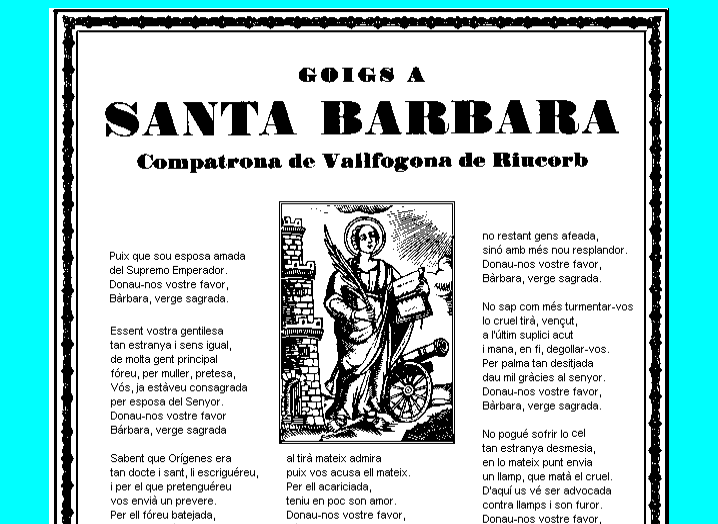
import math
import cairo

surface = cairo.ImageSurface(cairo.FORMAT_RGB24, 718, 524)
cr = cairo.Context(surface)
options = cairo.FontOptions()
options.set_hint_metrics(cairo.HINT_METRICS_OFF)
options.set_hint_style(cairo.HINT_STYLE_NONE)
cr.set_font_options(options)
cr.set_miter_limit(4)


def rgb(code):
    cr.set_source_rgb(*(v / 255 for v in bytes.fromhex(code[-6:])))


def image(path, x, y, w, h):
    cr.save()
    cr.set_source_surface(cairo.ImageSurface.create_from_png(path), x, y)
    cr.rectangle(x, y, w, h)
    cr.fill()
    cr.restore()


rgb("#00ffff")
cr.paint()
image("img/1.png", 49, 8, 620, 516)
surface.write_to_png("page.png")
